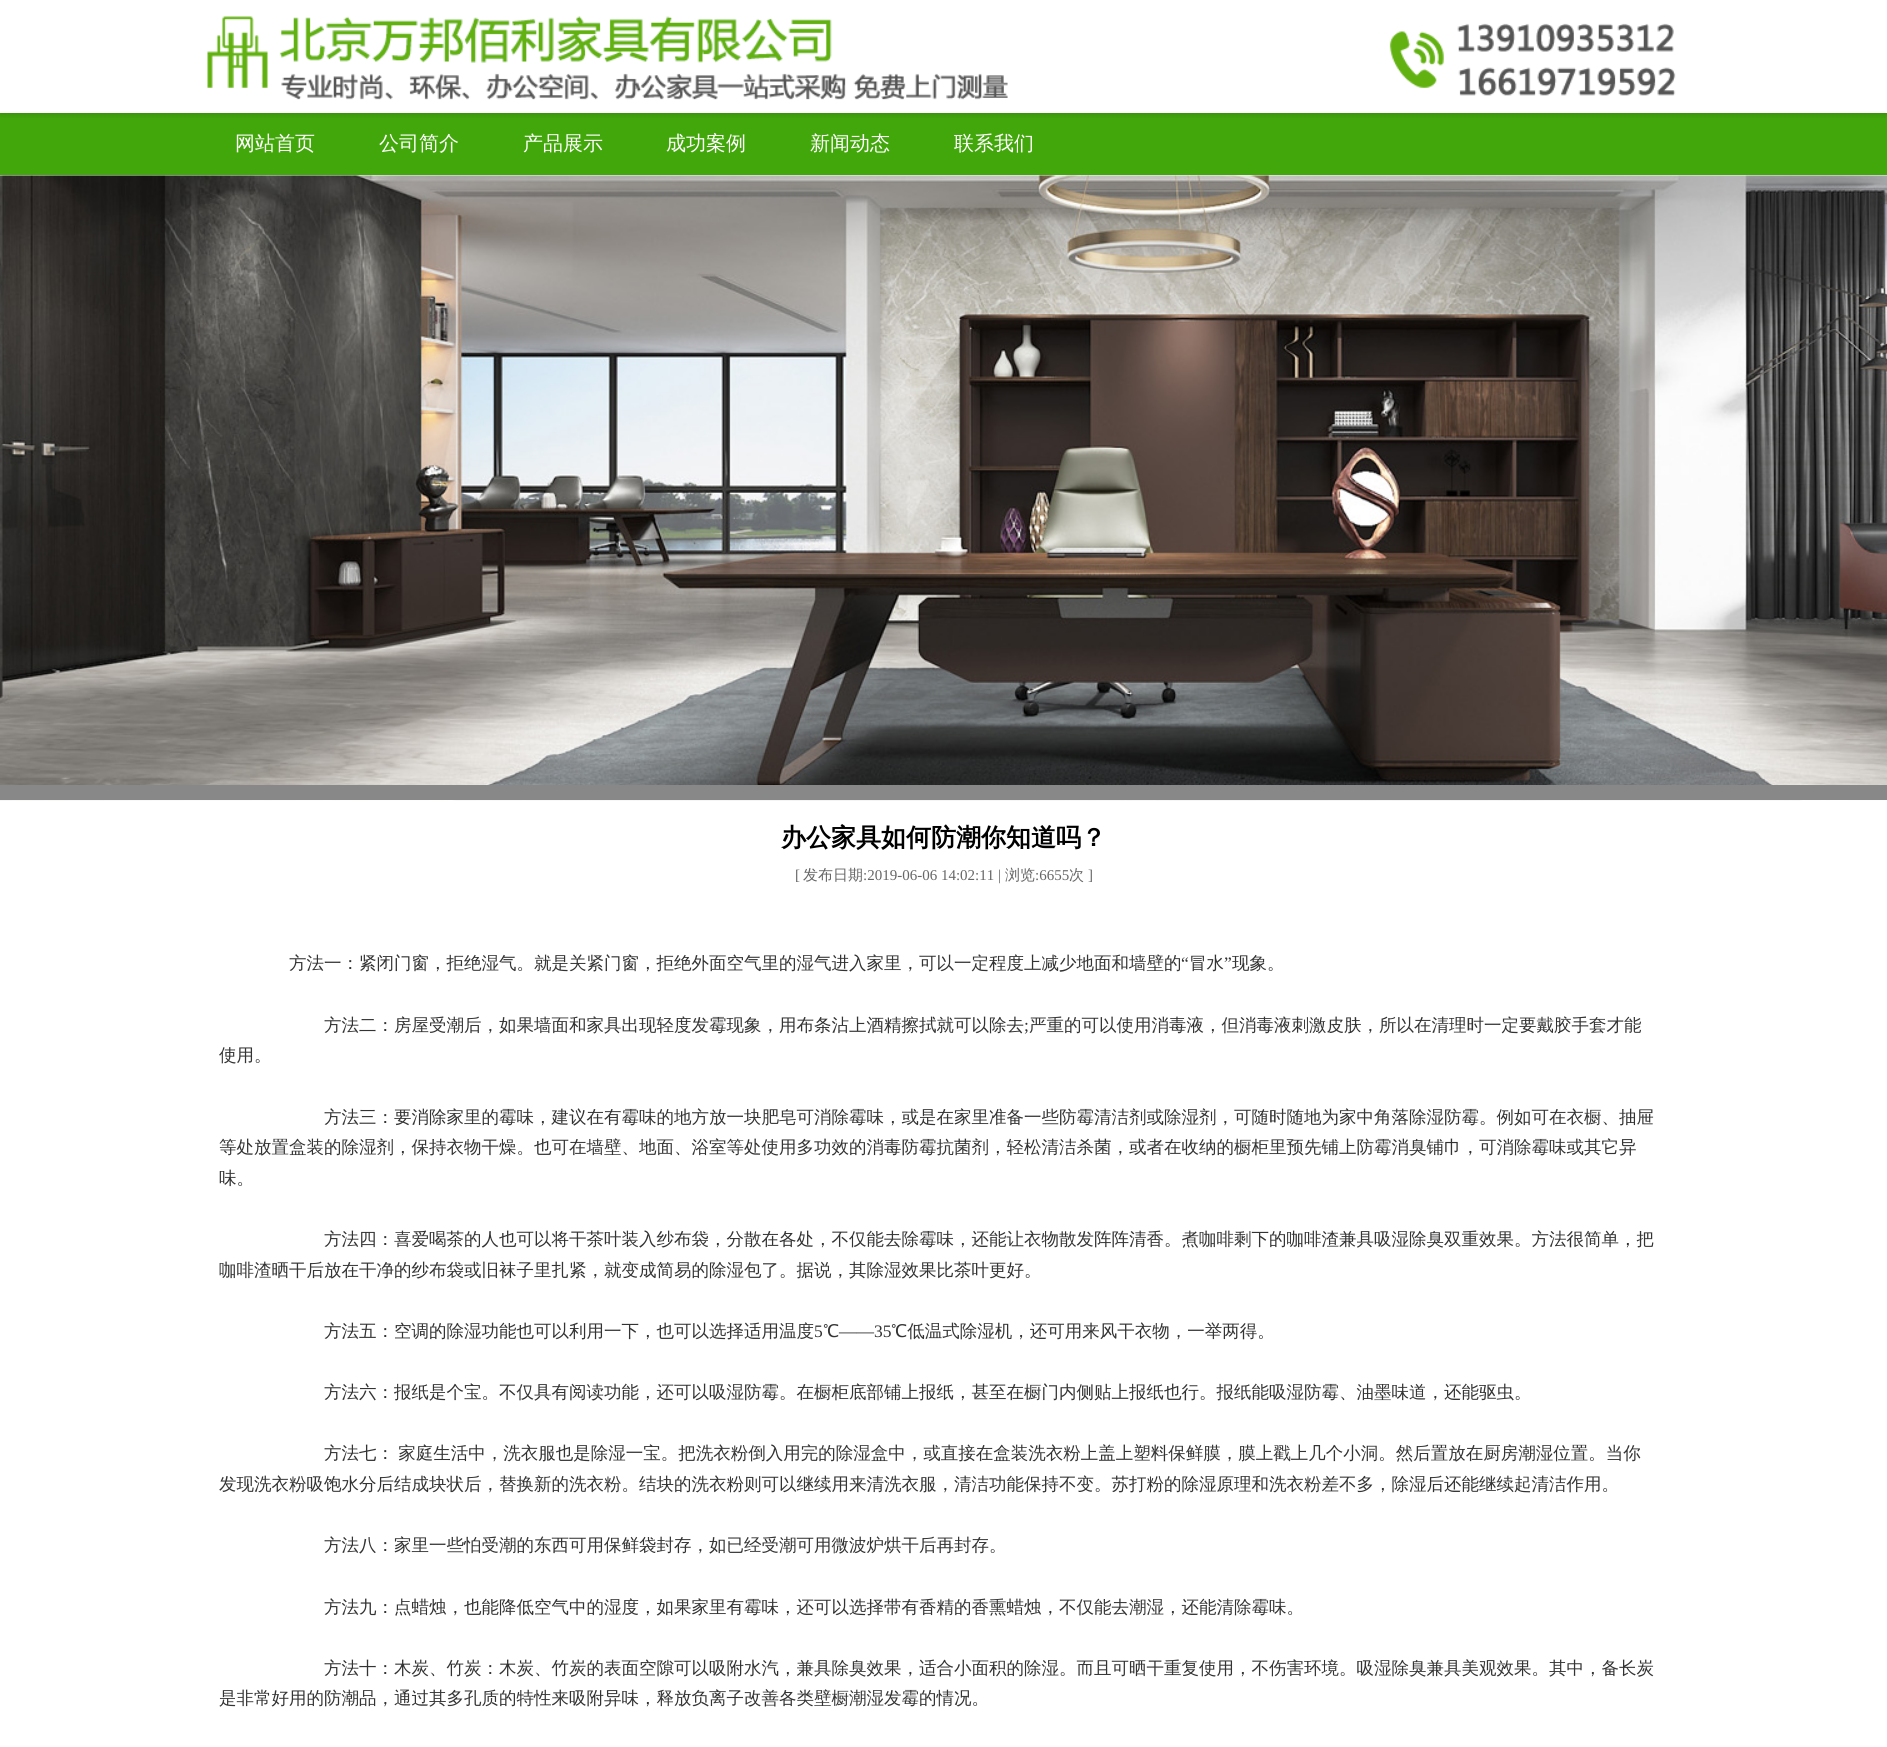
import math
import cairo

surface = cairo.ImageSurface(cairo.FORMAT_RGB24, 1887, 1747)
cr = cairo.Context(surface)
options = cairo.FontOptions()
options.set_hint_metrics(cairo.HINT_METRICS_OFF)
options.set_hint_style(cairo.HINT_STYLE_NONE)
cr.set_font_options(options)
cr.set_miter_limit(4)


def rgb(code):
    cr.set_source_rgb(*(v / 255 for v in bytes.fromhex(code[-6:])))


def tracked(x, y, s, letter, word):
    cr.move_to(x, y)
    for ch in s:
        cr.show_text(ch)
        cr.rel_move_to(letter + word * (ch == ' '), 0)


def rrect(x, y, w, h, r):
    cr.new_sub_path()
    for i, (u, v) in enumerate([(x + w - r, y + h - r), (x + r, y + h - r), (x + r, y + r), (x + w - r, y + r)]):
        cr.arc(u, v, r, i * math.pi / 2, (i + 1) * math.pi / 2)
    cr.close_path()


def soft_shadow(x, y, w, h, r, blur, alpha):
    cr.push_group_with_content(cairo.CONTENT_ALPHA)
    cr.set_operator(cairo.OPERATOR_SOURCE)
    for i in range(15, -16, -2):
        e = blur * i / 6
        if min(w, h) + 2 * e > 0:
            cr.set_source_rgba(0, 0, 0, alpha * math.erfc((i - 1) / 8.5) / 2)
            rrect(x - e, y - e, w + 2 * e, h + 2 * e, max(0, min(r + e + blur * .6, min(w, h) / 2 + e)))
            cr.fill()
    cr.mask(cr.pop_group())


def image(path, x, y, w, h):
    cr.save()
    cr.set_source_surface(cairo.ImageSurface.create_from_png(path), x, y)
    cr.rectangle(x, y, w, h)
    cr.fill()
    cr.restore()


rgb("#ffffff")
cr.paint()
rgb("#42a70b")
cr.rectangle(0, 113, 1887, 62)
cr.fill()
cr.save()
cr.set_fill_rule(cairo.FILL_RULE_EVEN_ODD)
cr.new_path()
cr.move_to(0, 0)
cr.line_to(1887, 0)
cr.line_to(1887, 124)
cr.line_to(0, 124)
cr.close_path()
cr.move_to(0, -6)
cr.line_to(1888, -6)
cr.line_to(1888, 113)
cr.line_to(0, 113)
cr.close_path()
cr.clip()
rgb("#000000")
soft_shadow(0, -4, 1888, 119, 0, 2.5, 0.15)
cr.restore()
image("img/1.png", 207, 16, 1469, 84)
image("img/2.png", 0, 175, 1887, 626)
rgb("#888888")
cr.rectangle(0, 785, 1887, 15)
cr.fill()
cr.select_font_face("WenQuanYi Zen Hei Medium")
cr.set_font_size(20)
rgb("#ffffff")
for x, y, s in [
    (235, 150, "网站首页"),
    (379, 150, "公司简介"),
    (523, 150, "产品展示"),
    (666, 150, "成功案例"),
    (810, 150, "新闻动态"),
    (954, 150, "联系我们"),
]:
    cr.move_to(x, y)
    cr.show_text(s)
cr.select_font_face("WenQuanYi Zen Hei", cairo.FONT_SLANT_NORMAL, cairo.FONT_WEIGHT_BOLD)
cr.set_font_size(25)
rgb("#000000")
cr.move_to(781, 846)
cr.show_text("办公家具如何防潮你知道吗？")
cr.select_font_face("Liberation Serif")
cr.set_font_size(15)
rgb("#666666")
cr.move_to(795, 880)
cr.show_text("[")
cr.select_font_face("WenQuanYi Zen Hei Medium")
cr.move_to(803, 880)
cr.show_text("发布日期")
cr.select_font_face("Liberation Serif")
cr.move_to(863, 880)
cr.show_text(":2019-06-06 14:02:11 |")
cr.select_font_face("WenQuanYi Zen Hei Medium")
cr.move_to(1005, 880)
cr.show_text("浏览")
cr.select_font_face("Liberation Serif")
cr.move_to(1035, 880)
cr.show_text(":6655")
cr.select_font_face("WenQuanYi Zen Hei Medium")
cr.move_to(1069, 880)
cr.show_text("次")
cr.select_font_face("Liberation Serif")
cr.move_to(1088, 880)
cr.show_text("]")
cr.select_font_face("WenQuanYi Zen Hei Medium")
cr.set_font_size(17.5)
rgb("#333333")
cr.move_to(289, 969)
cr.show_text("方法一：紧闭门窗，拒绝湿气。就是关紧门窗，拒绝外面空气里的湿气进入家里，可以一定程度上减少地面和墙壁的")
cr.select_font_face("Liberation Serif")
cr.move_to(1181, 969)
cr.show_text("“")
cr.select_font_face("WenQuanYi Zen Hei Medium")
cr.move_to(1189, 969)
cr.show_text("冒水")
cr.select_font_face("Liberation Serif")
cr.move_to(1224, 969)
cr.show_text("”")
cr.select_font_face("WenQuanYi Zen Hei Medium")
cr.move_to(1232, 969)
cr.show_text("现象。")
cr.move_to(324, 1031)
cr.show_text("方法二：房屋受潮后，如果墙面和家具出现轻度发霉现象，用布条沾上酒精擦拭就可以除去")
cr.select_font_face("Liberation Serif")
cr.move_to(1024, 1031)
cr.show_text(";")
cr.select_font_face("WenQuanYi Zen Hei Medium")
for x, y, s in [
    (1029, 1031, "严重的可以使用消毒液，但消毒液刺激皮肤，所以在清理时一定要戴胶手套才能"),
    (219, 1061, "使用。"),
    (324, 1123, "方法三：要消除家里的霉味，建议在有霉味的地方放一块肥皂可消除霉味，或是在家里准备一些防霉清洁剂或除湿剂，可随时随地为家中角落除湿防霉。例如可在衣橱、抽屉"),
    (219, 1153, "等处放置盒装的除湿剂，保持衣物干燥。也可在墙壁、地面、浴室等处使用多功效的消毒防霉抗菌剂，轻松清洁杀菌，或者在收纳的橱柜里预先铺上防霉消臭铺巾，可消除霉味或其它异"),
    (219, 1184, "味。"),
    (324, 1245, "方法四：喜爱喝茶的人也可以将干茶叶装入纱布袋，分散在各处，不仅能去除霉味，还能让衣物散发阵阵清香。煮咖啡剩下的咖啡渣兼具吸湿除臭双重效果。方法很简单，把"),
    (219, 1276, "咖啡渣晒干后放在干净的纱布袋或旧袜子里扎紧，就变成简易的除湿包了。据说，其除湿效果比茶叶更好。"),
    (324, 1337, "方法五：空调的除湿功能也可以利用一下，也可以选择适用温度"),
]:
    cr.move_to(x, y)
    cr.show_text(s)
cr.select_font_face("Liberation Serif")
cr.move_to(814, 1337)
cr.show_text("5")
cr.select_font_face("WenQuanYi Zen Hei Medium")
cr.move_to(823, 1337)
cr.show_text("℃")
cr.select_font_face("Liberation Serif")
cr.move_to(839, 1337)
cr.show_text("——35")
cr.select_font_face("WenQuanYi Zen Hei Medium")
cr.move_to(891, 1337)
cr.show_text("℃低温式除湿机，还可用来风干衣物，一举两得。")
cr.move_to(324, 1398)
cr.show_text("方法六：报纸是个宝。不仅具有阅读功能，还可以吸湿防霉。在橱柜底部铺上报纸，甚至在橱门内侧贴上报纸也行。报纸能吸湿防霉、油墨味道，还能驱虫。")
tracked(324, 1459, "方法七： 家庭生活中，洗衣服也是除湿一宝。把洗衣粉倒入用完的除湿盒中，或直接在盒装洗衣粉上盖上塑料保鲜膜，膜上戳上几个小洞。然后置放在厨房潮湿位置。当你", 0, -1)
for x, y, s in [
    (219, 1490, "发现洗衣粉吸饱水分后结成块状后，替换新的洗衣粉。结块的洗衣粉则可以继续用来清洗衣服，清洁功能保持不变。苏打粉的除湿原理和洗衣粉差不多，除湿后还能继续起清洁作用。"),
    (324, 1551, "方法八：家里一些怕受潮的东西可用保鲜袋封存，如已经受潮可用微波炉烘干后再封存。"),
    (324, 1613, "方法九：点蜡烛，也能降低空气中的湿度，如果家里有霉味，还可以选择带有香精的香熏蜡烛，不仅能去潮湿，还能清除霉味。"),
    (324, 1674, "方法十：木炭、竹炭：木炭、竹炭的表面空隙可以吸附水汽，兼具除臭效果，适合小面积的除湿。而且可晒干重复使用，不伤害环境。吸湿除臭兼具美观效果。其中，备长炭"),
    (219, 1704, "是非常好用的防潮品，通过其多孔质的特性来吸附异味，释放负离子改善各类壁橱潮湿发霉的情况。"),
]:
    cr.move_to(x, y)
    cr.show_text(s)
surface.write_to_png("page.png")
